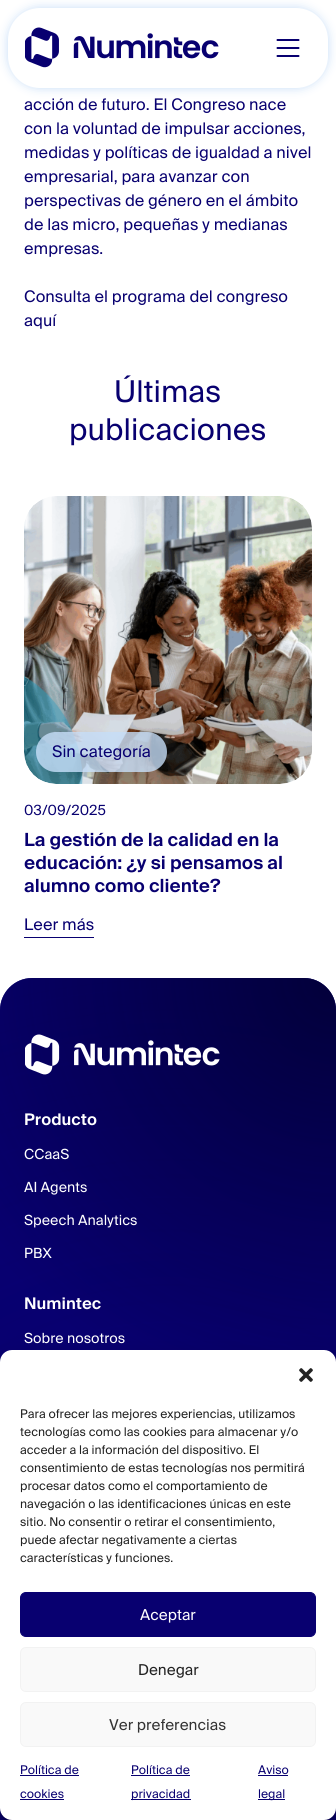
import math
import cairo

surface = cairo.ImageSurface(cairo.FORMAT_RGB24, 336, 1820)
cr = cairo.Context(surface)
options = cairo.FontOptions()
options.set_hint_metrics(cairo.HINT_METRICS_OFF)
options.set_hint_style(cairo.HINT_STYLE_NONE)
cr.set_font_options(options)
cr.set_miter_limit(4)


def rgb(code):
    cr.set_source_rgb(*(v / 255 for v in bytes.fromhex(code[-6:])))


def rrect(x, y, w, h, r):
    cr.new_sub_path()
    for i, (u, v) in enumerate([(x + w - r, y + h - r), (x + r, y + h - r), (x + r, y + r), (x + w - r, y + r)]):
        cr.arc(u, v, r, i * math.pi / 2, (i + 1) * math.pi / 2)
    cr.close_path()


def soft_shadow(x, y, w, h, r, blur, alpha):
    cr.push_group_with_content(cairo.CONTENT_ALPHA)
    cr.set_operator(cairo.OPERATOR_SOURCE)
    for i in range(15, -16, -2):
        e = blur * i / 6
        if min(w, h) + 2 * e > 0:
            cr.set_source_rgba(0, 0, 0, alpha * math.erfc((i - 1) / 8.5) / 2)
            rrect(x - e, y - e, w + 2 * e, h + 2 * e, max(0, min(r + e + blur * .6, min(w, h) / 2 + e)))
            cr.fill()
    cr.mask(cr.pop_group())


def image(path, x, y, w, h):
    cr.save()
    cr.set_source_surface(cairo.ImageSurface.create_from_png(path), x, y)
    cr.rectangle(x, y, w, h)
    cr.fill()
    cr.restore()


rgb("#ffffff")
cr.paint()
rgb("#c6ddf7")
soft_shadow(8, 8, 320, 80, 32, 5, 1)
rgb("#ffffff")
rrect(8, 8, 320, 80, 32)
cr.fill()
image("img/1.png", 25, 27, 194, 41)
cr.new_path()
cr.move_to(298.5, 40)
cr.line_to(277.5, 40)
cr.move_to(298.5, 56)
cr.line_to(277.5, 56)
cr.move_to(298.5, 48)
cr.line_to(277.5, 48)
rgb("#080070")
cr.set_line_cap(cairo.LINE_CAP_ROUND)
cr.set_line_join(cairo.LINE_JOIN_ROUND)
cr.stroke()
image("img/2.png", 24, 496, 288, 288)
cr.save()
rrect(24, 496, 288, 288, 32)
cr.clip()
cr.set_fill_rule(cairo.FILL_RULE_EVEN_ODD)
cr.new_path()
cr.move_to(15, 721)
cr.line_to(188, 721)
cr.line_to(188, 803)
cr.line_to(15, 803)
cr.close_path()
cr.move_to(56, 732)
cr.line_to(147, 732)
cr.curve_to(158, 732, 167, 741, 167, 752)
cr.curve_to(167, 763, 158, 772, 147, 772)
cr.line_to(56, 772)
cr.curve_to(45, 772, 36, 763, 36, 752)
cr.curve_to(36, 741, 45, 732, 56, 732)
cr.close_path()
cr.clip()
rgb("#000000")
soft_shadow(39, 745, 125, 34, 17, 7.5, 0.1)
cr.restore()
cr.set_source_rgba(0.776, 0.867, 0.969, 0.8)
rrect(36, 732, 131, 40, 20)
cr.fill()
rgb("#080070")
cr.rectangle(24, 937, 70, 1)
cr.fill()
cr.new_path()
cr.move_to(32, 978)
cr.line_to(304, 978)
cr.curve_to(321.5, 978, 336, 992.5, 336, 1010)
cr.line_to(336, 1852)
cr.line_to(0, 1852)
cr.line_to(0, 1010)
cr.curve_to(0, 992.5, 14.5, 978, 32, 978)
cr.close_path()
cr.fill()
gradient = cairo.RadialGradient(168, 1633, 0, 168, 1633, 1200)
gradient.add_color_stop_rgba(0, 0.031, 0, 0.439, 1)
gradient.add_color_stop_rgba(0.5, 0.031, 0, 0.439, 0.7)
gradient.add_color_stop_rgba(1, 0.031, 0, 0.439, 0)
cr.set_source(gradient)
cr.new_path()
cr.move_to(32, 978)
cr.line_to(304, 978)
cr.curve_to(321.5, 978, 336, 992.5, 336, 1010)
cr.line_to(336, 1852)
cr.line_to(0, 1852)
cr.line_to(0, 1010)
cr.curve_to(0, 992.5, 14.5, 978, 32, 978)
cr.close_path()
cr.fill()
gradient = cairo.RadialGradient(336, 978, 0, 336, 978, 800)
gradient.add_color_stop_rgba(0, 0, 0, 0.137, 0.7)
gradient.add_color_stop_rgba(0.55, 0, 0, 0.137, 0)
cr.set_source(gradient)
cr.new_path()
cr.move_to(32, 978)
cr.line_to(304, 978)
cr.curve_to(321.5, 978, 336, 992.5, 336, 1010)
cr.line_to(336, 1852)
cr.line_to(0, 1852)
cr.line_to(0, 1010)
cr.curve_to(0, 992.5, 14.5, 978, 32, 978)
cr.close_path()
cr.fill()
image("img/3.png", 25, 1034, 195, 41)
rgb("#000000")
soft_shadow(0, 1356, 336, 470, 12, 3, 0.23)
soft_shadow(0, 1360, 336, 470, 12, 10, 0.19)
rgb("#ffffff")
rrect(0, 1350, 336, 470, 12)
cr.fill()
image("img/4.png", 299, 1368, 14, 14)
rgb("#080070")
rrect(20.5, 1592.5, 295, 44, 5.5)
cr.fill_preserve()
cr.set_line_width(1)
cr.set_line_cap(cairo.LINE_CAP_BUTT)
cr.set_line_join(cairo.LINE_JOIN_MITER)
cr.stroke()
rgb("#f9f9f9")
rrect(20.5, 1647.5, 295, 44, 5.5)
cr.fill_preserve()
rgb("#f2f2f2")
cr.stroke()
rgb("#f9f9f9")
rrect(20.5, 1702.5, 295, 44, 5.5)
cr.fill_preserve()
rgb("#f2f2f2")
cr.stroke()
for x, y, w, h, color in [
    (20, 1775, 59, 1, "#080070"),
    (20, 1799, 44, 1, "#080070"),
    (131, 1775, 59, 1, "#080070"),
    (131, 1799, 60, 1, "#080070"),
    (258, 1775, 30, 1, "#080070"),
    (258, 1799, 27, 1, "#080070"),
]:
    rgb(color)
    cr.rectangle(x, y, w, h)
    cr.fill()
cr.select_font_face("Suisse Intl")
cr.set_font_size(16)
for x, y, s in [
    (24, 110, "acción de futuro. El Congreso nace"),
    (24, 134, "con la voluntad de impulsar acciones,"),
    (24, 158, "medidas y políticas de igualdad a nivel"),
    (24, 182, "empresarial, para avanzar con"),
    (24, 206, "perspectivas de género en el ámbito"),
    (24, 230, "de las micro, pequeñas y medianas"),
    (24, 254, "empresas."),
    (24, 302, "Consulta el programa del congreso"),
    (24, 326, "aquí"),
]:
    cr.move_to(x, y)
    cr.show_text(s)
cr.set_font_size(30)
cr.move_to(114, 402)
cr.show_text("Últimas")
cr.move_to(69, 440)
cr.show_text("publicaciones")
cr.set_font_size(16)
cr.move_to(52, 757)
cr.show_text("Sin categoría")
cr.set_font_size(14)
cr.move_to(24, 815)
cr.show_text("03/09/2025")
cr.select_font_face("Suisse Intl SemiBold")
cr.set_font_size(18.1)
for x, y, s in [
    (24, 846, "La gestión de la calidad en la"),
    (24, 869, "educación: ¿y si pensamos al"),
    (24, 892, "alumno como cliente?"),
]:
    cr.move_to(x, y)
    cr.show_text(s)
cr.select_font_face("Suisse Intl")
cr.set_font_size(16)
cr.move_to(24, 930)
cr.show_text("Leer más")
cr.select_font_face("Suisse Intl SemiBold")
rgb("#ffffff")
cr.move_to(24, 1125)
cr.show_text("Producto")
cr.select_font_face("Suisse Intl")
cr.set_font_size(14)
for x, y, s in [
    (24, 1159, "CCaaS"),
    (24, 1192, "AI Agents"),
    (24, 1225, "Speech Analytics"),
    (24, 1258, "PBX"),
]:
    cr.move_to(x, y)
    cr.show_text(s)
cr.select_font_face("Suisse Intl SemiBold")
cr.set_font_size(16)
cr.move_to(24, 1309)
cr.show_text("Numintec")
cr.select_font_face("Suisse Intl")
cr.set_font_size(14)
cr.move_to(24, 1343)
cr.show_text("Sobre nosotros")
cr.set_font_size(12)
rgb("#222222")
for x, y, s in [
    (20, 1418, "Para ofrecer las mejores experiencias, utilizamos"),
    (20, 1436, "tecnologías como las cookies para almacenar y/o"),
    (20, 1454, "acceder a la información del dispositivo. El"),
    (20, 1472, "consentimiento de estas tecnologías nos permitirá"),
    (20, 1490, "procesar datos como el comportamiento de"),
    (20, 1508, "navegación o las identificaciones únicas en este"),
    (20, 1526, "sitio. No consentir o retirar el consentimiento,"),
    (20, 1544, "puede afectar negativamente a ciertas"),
    (20, 1562, "características y funciones."),
]:
    cr.move_to(x, y)
    cr.show_text(s)
cr.set_font_size(15)
rgb("#ffffff")
cr.move_to(140, 1620)
cr.show_text("Aceptar")
rgb("#222222")
cr.move_to(138, 1675)
cr.show_text("Denegar")
rgb("#333333")
cr.move_to(109, 1730)
cr.show_text("Ver preferencias")
cr.set_font_size(12)
rgb("#080070")
for x, y, s in [
    (20, 1774, "Política de"),
    (20, 1798, "cookies"),
    (131, 1774, "Política de"),
    (131, 1798, "privacidad"),
    (258, 1774, "Aviso"),
    (258, 1798, "legal"),
]:
    cr.move_to(x, y)
    cr.show_text(s)
surface.write_to_png("page.png")
